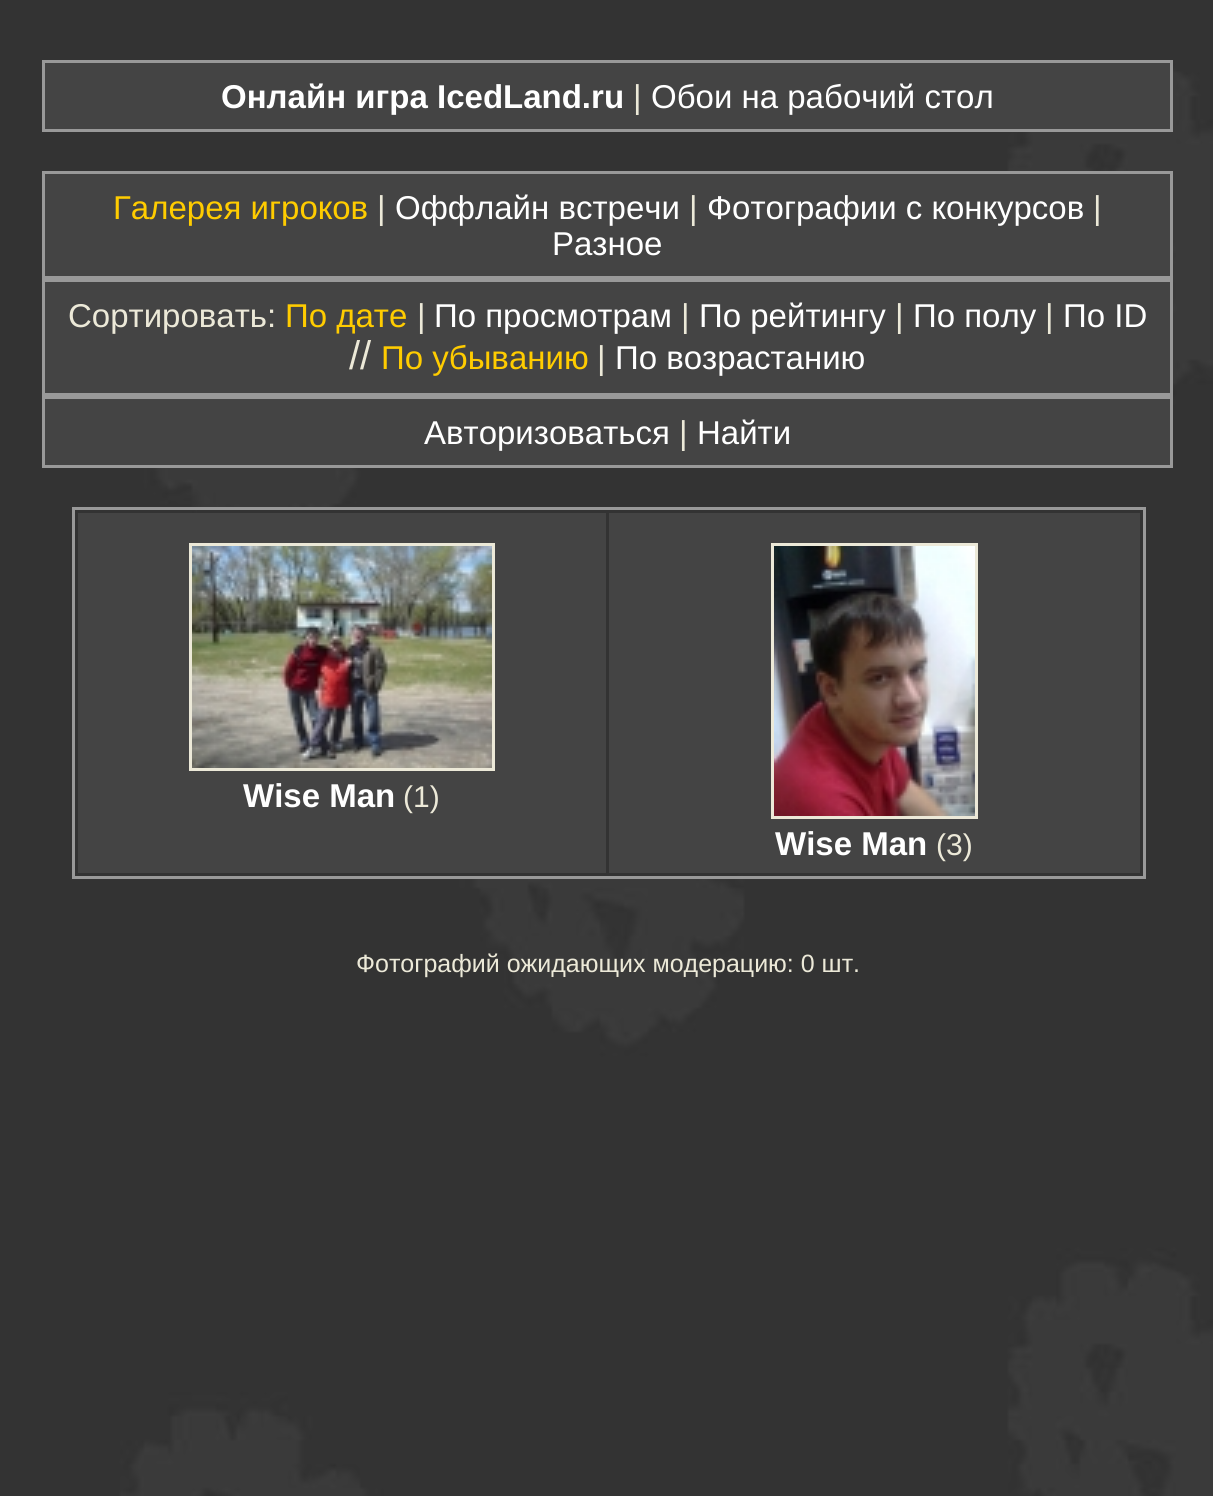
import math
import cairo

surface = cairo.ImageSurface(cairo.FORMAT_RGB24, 1213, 1496)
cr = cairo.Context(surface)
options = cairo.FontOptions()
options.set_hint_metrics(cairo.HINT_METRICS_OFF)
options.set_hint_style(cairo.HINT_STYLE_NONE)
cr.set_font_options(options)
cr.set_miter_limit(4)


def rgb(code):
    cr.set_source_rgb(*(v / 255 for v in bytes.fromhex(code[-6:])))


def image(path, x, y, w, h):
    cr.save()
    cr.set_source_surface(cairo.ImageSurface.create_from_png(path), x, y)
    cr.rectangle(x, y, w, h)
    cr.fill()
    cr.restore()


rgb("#333333")
cr.paint()
image("img/1.png", 117, 63, 1096, 1433)
rgb("#444444")
cr.rectangle(43.5, 61.5, 1128, 69)
cr.fill_preserve()
rgb("#999999")
cr.set_line_width(3)
cr.stroke()
rgb("#444444")
cr.rectangle(43.5, 172.5, 1128, 105)
cr.fill_preserve()
rgb("#999999")
cr.stroke()
rgb("#444444")
cr.rectangle(43.5, 280.5, 1128, 114)
cr.fill_preserve()
rgb("#999999")
cr.stroke()
rgb("#444444")
cr.rectangle(43.5, 397.5, 1128, 69)
cr.fill_preserve()
rgb("#999999")
cr.stroke()
rgb("#333333")
cr.rectangle(197, 510, 533, 366)
cr.fill()
cr.rectangle(73.5, 508.5, 1071, 369)
rgb("#999999")
cr.stroke()
rgb("#444444")
cr.rectangle(78, 513, 528, 360)
cr.fill()
cr.rectangle(190.5, 544.5, 303, 225)
rgb("#ece9d8")
cr.stroke()
image("img/2.png", 192, 546, 300, 222)
rgb("#444444")
cr.rectangle(609, 513, 531, 360)
cr.fill()
cr.rectangle(772.5, 544.5, 204, 273)
rgb("#ece9d8")
cr.stroke()
image("img/3.png", 774, 546, 201, 270)
cr.select_font_face("Liberation Sans", cairo.FONT_SLANT_NORMAL, cairo.FONT_WEIGHT_BOLD)
cr.set_font_size(33)
rgb("#ffffff")
cr.move_to(221, 108)
cr.show_text("Онлайн игра IcedLand.ru")
cr.select_font_face("Liberation Sans")
rgb("#ece9d8")
cr.move_to(633, 108)
cr.show_text("|")
rgb("#ffffff")
cr.move_to(651, 108)
cr.show_text("Обои на рабочий стол")
rgb("#ffcc00")
cr.move_to(113, 219)
cr.show_text("Галерея игроков")
rgb("#ece9d8")
cr.move_to(377, 219)
cr.show_text("|")
rgb("#ffffff")
cr.move_to(395, 219)
cr.show_text("Оффлайн встречи")
rgb("#ece9d8")
cr.move_to(689, 219)
cr.show_text("|")
rgb("#ffffff")
cr.move_to(707, 219)
cr.show_text("Фотографии с конкурсов")
rgb("#ece9d8")
cr.move_to(1093, 219)
cr.show_text("|")
rgb("#ffffff")
cr.move_to(552, 255)
cr.show_text("Разное")
rgb("#ece9d8")
cr.move_to(68, 327)
cr.show_text("Сортировать:")
rgb("#ffcc00")
cr.move_to(285, 327)
cr.show_text("По дате")
rgb("#ece9d8")
cr.move_to(417, 327)
cr.show_text("|")
rgb("#ffffff")
cr.move_to(434, 327)
cr.show_text("По просмотрам")
rgb("#ece9d8")
cr.move_to(681, 327)
cr.show_text("|")
rgb("#ffffff")
cr.move_to(699, 327)
cr.show_text("По рейтингу")
rgb("#ece9d8")
cr.move_to(895, 327)
cr.show_text("|")
rgb("#ffffff")
cr.move_to(913, 327)
cr.show_text("По полу")
rgb("#ece9d8")
cr.move_to(1045, 327)
cr.show_text("|")
rgb("#ffffff")
cr.move_to(1063, 327)
cr.show_text("По ID")
cr.set_font_size(40)
rgb("#ece9d8")
cr.move_to(349, 369)
cr.show_text("//")
cr.set_font_size(33)
rgb("#ffcc00")
cr.move_to(381, 369)
cr.show_text("По убыванию")
rgb("#ece9d8")
cr.move_to(597, 369)
cr.show_text("|")
rgb("#ffffff")
cr.move_to(615, 369)
cr.show_text("По возрастанию")
cr.move_to(424, 444)
cr.show_text("Авторизоваться")
rgb("#ece9d8")
cr.move_to(679, 444)
cr.show_text("|")
rgb("#ffffff")
cr.move_to(697, 444)
cr.show_text("Найти")
cr.select_font_face("Liberation Sans", cairo.FONT_SLANT_NORMAL, cairo.FONT_WEIGHT_BOLD)
cr.move_to(243, 807)
cr.show_text("Wise Man")
cr.select_font_face("Liberation Sans")
cr.set_font_size(30)
rgb("#ece9d8")
cr.move_to(403, 807)
cr.show_text("(1)")
cr.select_font_face("Liberation Sans", cairo.FONT_SLANT_NORMAL, cairo.FONT_WEIGHT_BOLD)
cr.set_font_size(33)
rgb("#ffffff")
cr.move_to(775, 855)
cr.show_text("Wise Man")
cr.select_font_face("Liberation Sans")
cr.set_font_size(30)
rgb("#ece9d8")
cr.move_to(936, 855)
cr.show_text("(3)")
cr.set_font_size(25)
cr.move_to(356, 972)
cr.show_text("Фотографий ожидающих модерацию: 0 шт.")
surface.write_to_png("page.png")
